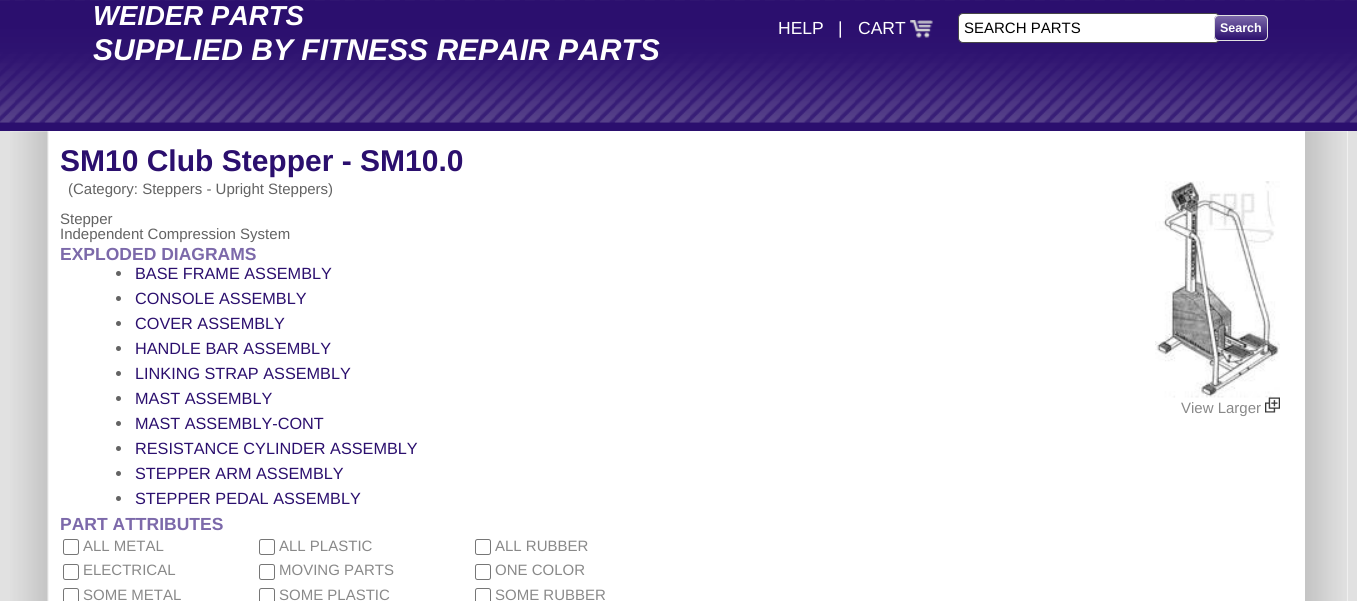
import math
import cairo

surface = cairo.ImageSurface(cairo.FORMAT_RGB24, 1357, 601)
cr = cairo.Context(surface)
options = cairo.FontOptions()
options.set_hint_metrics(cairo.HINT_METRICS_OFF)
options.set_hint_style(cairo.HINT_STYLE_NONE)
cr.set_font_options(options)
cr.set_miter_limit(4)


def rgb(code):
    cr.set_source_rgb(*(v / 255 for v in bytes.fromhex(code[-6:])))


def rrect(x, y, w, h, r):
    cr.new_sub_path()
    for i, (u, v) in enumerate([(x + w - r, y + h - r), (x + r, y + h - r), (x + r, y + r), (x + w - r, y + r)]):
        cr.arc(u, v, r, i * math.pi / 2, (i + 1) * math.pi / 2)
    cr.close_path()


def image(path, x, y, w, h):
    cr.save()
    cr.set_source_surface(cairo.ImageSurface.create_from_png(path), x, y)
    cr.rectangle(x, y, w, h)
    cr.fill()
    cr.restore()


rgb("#e1e1e1")
cr.paint()
rgb("#2b0f6e")
cr.rectangle(0, 0, 1357, 131)
cr.fill()
image("img/1.png", 0, 0, 1357, 123)
image("img/2.png", 910, 20, 23, 18)
rgb("#ffffff")
rrect(958.5, 13.5, 261, 29, 4.5)
cr.fill_preserve()
rgb("#474747")
cr.set_line_width(1)
cr.stroke()
cr.save()
rrect(1214, 15, 54, 26, 5)
cr.clip()
gradient = cairo.LinearGradient(1241, 16, 1241, 40)
gradient.add_color_stop_rgba(0, 0.486, 0.412, 0.667, 1)
gradient.add_color_stop_rgba(1, 0.169, 0.059, 0.431, 1)
cr.set_source(gradient)
cr.rectangle(1214, 16, 54, 24)
cr.fill()
cr.restore()
rrect(1214.5, 15.5, 53, 25, 4.5)
rgb("#e1e1e1")
cr.stroke()
rgb("#ffffff")
cr.rectangle(10, 131, 1338, 470)
cr.fill()
image("img/3.png", 10, 131, 39, 470)
image("img/4.png", 1305, 131, 43, 470)
rgb("#636363")
cr.arc(118.5, 273.5, 2.5, 0, 2 * math.pi)
cr.fill()
cr.arc(118.5, 298.5, 2.5, 0, 2 * math.pi)
cr.fill()
cr.arc(118.5, 323.5, 2.5, 0, 2 * math.pi)
cr.fill()
cr.arc(118.5, 348.5, 2.5, 0, 2 * math.pi)
cr.fill()
cr.arc(118.5, 373.5, 2.5, 0, 2 * math.pi)
cr.fill()
cr.arc(118.5, 398.5, 2.5, 0, 2 * math.pi)
cr.fill()
cr.arc(118.5, 423.5, 2.5, 0, 2 * math.pi)
cr.fill()
cr.arc(118.5, 448.5, 2.5, 0, 2 * math.pi)
cr.fill()
cr.arc(118.5, 473.5, 2.5, 0, 2 * math.pi)
cr.fill()
cr.arc(118.5, 498.5, 2.5, 0, 2 * math.pi)
cr.fill()
image("img/5.png", 1155, 181, 125, 217)
image("img/6.png", 1265, 397, 15, 16)
rrect(63.5, 539.5, 15, 15, 2)
rgb("#767676")
cr.stroke()
rrect(259.5, 539.5, 15, 15, 2)
cr.stroke()
rrect(475.5, 539.5, 15, 15, 2)
cr.stroke()
rrect(63.5, 564.5, 15, 15, 2)
cr.stroke()
rrect(259.5, 564.5, 15, 15, 2)
cr.stroke()
rrect(475.5, 564.5, 15, 15, 2)
cr.stroke()
rrect(63.5, 588.5, 15, 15, 2)
cr.stroke()
rrect(259.5, 588.5, 15, 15, 2)
cr.stroke()
rrect(475.5, 588.5, 15, 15, 2)
cr.stroke()
cr.select_font_face("Liberation Sans", cairo.FONT_SLANT_ITALIC, cairo.FONT_WEIGHT_BOLD)
cr.set_font_size(27.5)
rgb("#ffffff")
cr.move_to(93, 25)
cr.show_text("WEIDER PARTS")
cr.set_font_size(30)
cr.move_to(93, 60)
cr.show_text("SUPPLIED BY FITNESS REPAIR PARTS")
cr.select_font_face("Liberation Sans")
cr.set_font_size(17.5)
for x, y, s in [
    (778, 34, "HELP"),
    (838, 34, "|"),
    (858, 34, "CART"),
]:
    cr.move_to(x, y)
    cr.show_text(s)
cr.set_font_size(15)
rgb("#000000")
cr.move_to(964, 33)
cr.show_text("SEARCH PARTS")
cr.select_font_face("Liberation Sans", cairo.FONT_SLANT_NORMAL, cairo.FONT_WEIGHT_BOLD)
cr.set_font_size(12.5)
rgb("#ffffff")
cr.move_to(1220, 32)
cr.show_text("Search")
cr.set_font_size(30)
rgb("#2b0f6e")
cr.move_to(60, 171)
cr.show_text("SM10 Club Stepper - SM10.0")
cr.select_font_face("Liberation Sans")
cr.set_font_size(15)
rgb("#636363")
for x, y, s in [
    (68, 194, "(Category: Steppers - Upright Steppers)"),
    (60, 224, "Stepper"),
    (60, 239, "Independent Compression System"),
]:
    cr.move_to(x, y)
    cr.show_text(s)
cr.select_font_face("Liberation Sans", cairo.FONT_SLANT_NORMAL, cairo.FONT_WEIGHT_BOLD)
cr.set_font_size(17.5)
rgb("#7c69aa")
cr.move_to(60, 260)
cr.show_text("EXPLODED DIAGRAMS")
cr.select_font_face("Liberation Sans")
cr.set_font_size(16.25)
rgb("#2b0f6e")
for x, y, s in [
    (135, 279, "BASE FRAME ASSEMBLY"),
    (135, 304, "CONSOLE ASSEMBLY"),
    (135, 329, "COVER ASSEMBLY"),
    (135, 354, "HANDLE BAR ASSEMBLY"),
    (135, 379, "LINKING STRAP ASSEMBLY"),
    (135, 404, "MAST ASSEMBLY"),
    (135, 429, "MAST ASSEMBLY-CONT"),
    (135, 454, "RESISTANCE CYLINDER ASSEMBLY"),
    (135, 479, "STEPPER ARM ASSEMBLY"),
    (135, 504, "STEPPER PEDAL ASSEMBLY"),
]:
    cr.move_to(x, y)
    cr.show_text(s)
cr.set_font_size(15)
rgb("#898989")
cr.move_to(1181, 413)
cr.show_text("View Larger")
cr.select_font_face("Liberation Sans", cairo.FONT_SLANT_NORMAL, cairo.FONT_WEIGHT_BOLD)
cr.set_font_size(17.5)
rgb("#7c69aa")
cr.move_to(60, 530)
cr.show_text("PART ATTRIBUTES")
cr.select_font_face("Liberation Sans")
cr.set_font_size(15)
rgb("#898989")
for x, y, s in [
    (83, 551, "ALL METAL"),
    (279, 551, "ALL PLASTIC"),
    (495, 551, "ALL RUBBER"),
    (83, 575, "ELECTRICAL"),
    (279, 575, "MOVING PARTS"),
    (495, 575, "ONE COLOR"),
    (83, 600, "SOME METAL"),
    (279, 600, "SOME PLASTIC"),
    (495, 600, "SOME RUBBER"),
]:
    cr.move_to(x, y)
    cr.show_text(s)
surface.write_to_png("page.png")
